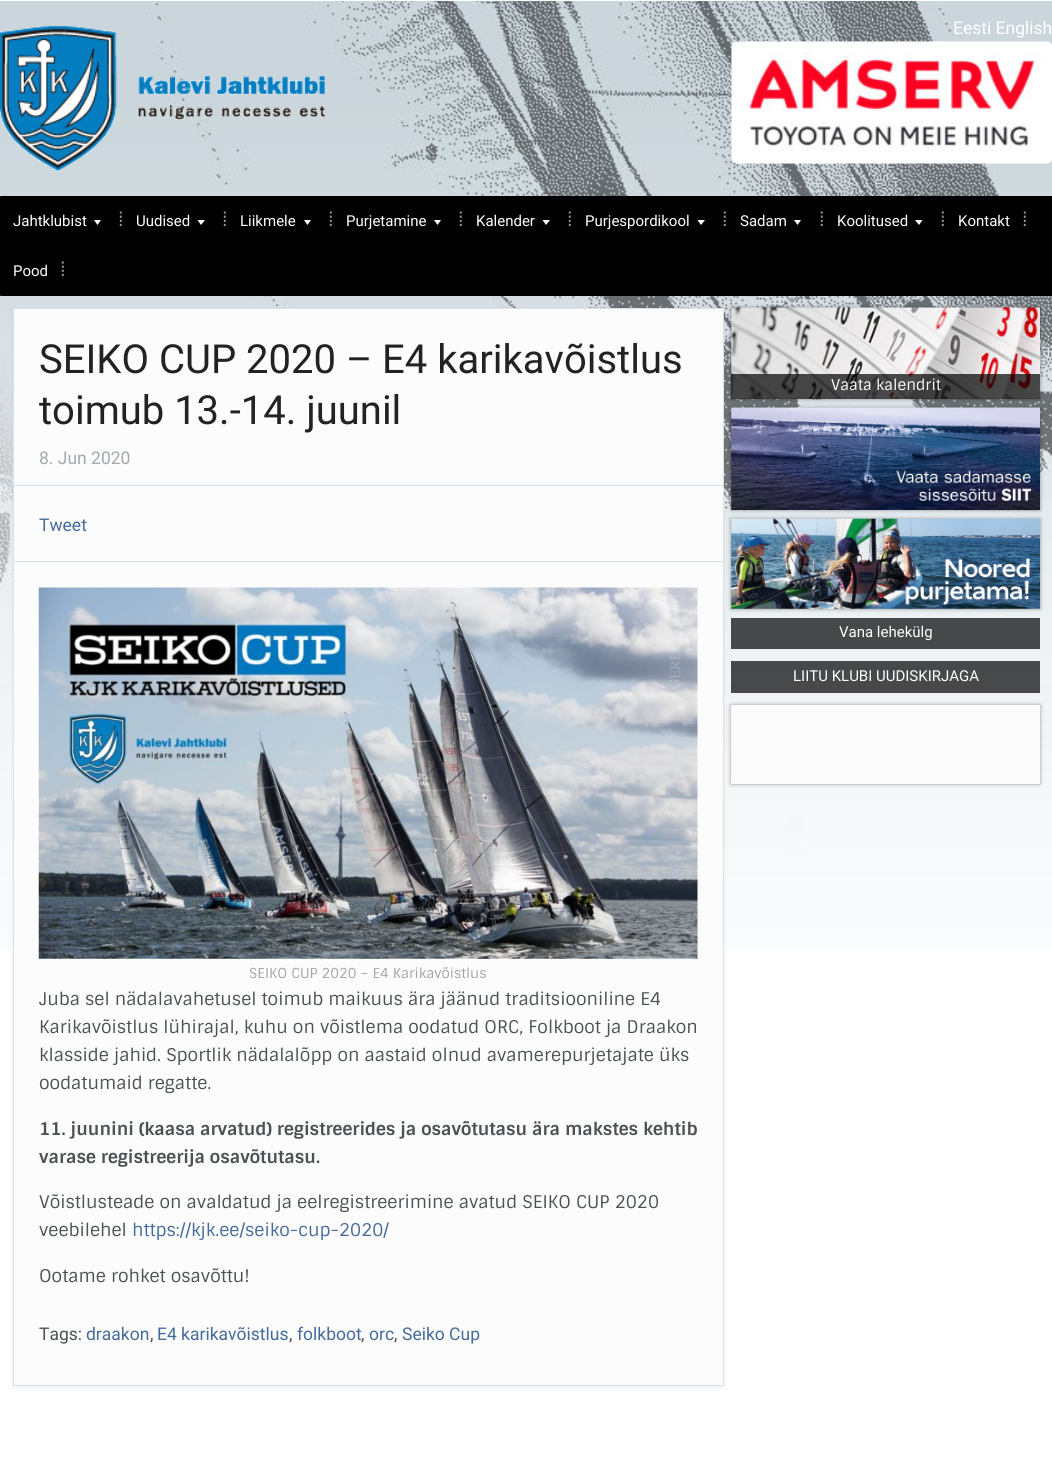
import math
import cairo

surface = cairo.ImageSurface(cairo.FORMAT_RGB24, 1052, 1478)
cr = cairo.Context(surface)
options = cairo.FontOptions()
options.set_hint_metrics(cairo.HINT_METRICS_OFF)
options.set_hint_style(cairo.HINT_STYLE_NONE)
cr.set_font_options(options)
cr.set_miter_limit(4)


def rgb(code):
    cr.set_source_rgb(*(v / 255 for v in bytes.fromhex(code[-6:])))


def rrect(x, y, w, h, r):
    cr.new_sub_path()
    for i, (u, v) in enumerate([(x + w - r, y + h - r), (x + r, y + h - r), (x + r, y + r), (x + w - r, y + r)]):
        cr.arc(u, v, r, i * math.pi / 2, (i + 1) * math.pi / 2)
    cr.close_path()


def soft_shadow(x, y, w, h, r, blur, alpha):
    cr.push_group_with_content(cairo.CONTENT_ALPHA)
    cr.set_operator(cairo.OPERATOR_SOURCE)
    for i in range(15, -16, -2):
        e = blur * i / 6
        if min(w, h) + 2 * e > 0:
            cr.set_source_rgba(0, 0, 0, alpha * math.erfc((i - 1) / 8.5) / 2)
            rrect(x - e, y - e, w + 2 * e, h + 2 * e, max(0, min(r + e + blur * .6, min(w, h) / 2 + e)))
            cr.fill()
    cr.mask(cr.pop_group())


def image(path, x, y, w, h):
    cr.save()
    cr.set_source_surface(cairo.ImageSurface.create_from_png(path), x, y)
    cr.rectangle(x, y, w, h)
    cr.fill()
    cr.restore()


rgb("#ffffff")
cr.paint()
image("img/1.png", 0, 1, 1052, 947)
image("img/2.png", 0, 26, 325, 146)
image("img/3.png", 731, 41, 321, 123)
rgb("#000000")
rrect(0, 196, 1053, 100, 1)
cr.fill()
rgb("#ffffff")
cr.new_path()
cr.move_to(94, 220)
cr.line_to(101, 220)
cr.line_to(97.5, 225)
cr.close_path()
cr.fill()
cr.new_path()
cr.move_to(197.5, 220)
cr.line_to(205, 220)
cr.line_to(201, 225)
cr.close_path()
cr.fill()
cr.new_path()
cr.move_to(304, 220)
cr.line_to(311, 220)
cr.line_to(307.5, 225)
cr.close_path()
cr.fill()
cr.new_path()
cr.move_to(434, 220)
cr.line_to(441, 220)
cr.line_to(437.5, 225)
cr.close_path()
cr.fill()
cr.new_path()
cr.move_to(542.5, 220)
cr.line_to(550, 220)
cr.line_to(546, 225)
cr.close_path()
cr.fill()
cr.new_path()
cr.move_to(697.5, 220)
cr.line_to(705, 220)
cr.line_to(701, 225)
cr.close_path()
cr.fill()
cr.new_path()
cr.move_to(794, 220)
cr.line_to(801, 220)
cr.line_to(797.5, 225)
cr.close_path()
cr.fill()
cr.new_path()
cr.move_to(915, 220)
cr.line_to(922.5, 220)
cr.line_to(919, 225)
cr.close_path()
cr.fill()
rgb("#4a5f74")
soft_shadow(13, 309, 711, 1079, 0, 2, 0.08)
rgb("#fcfcfc")
cr.rectangle(13.5, 308.5, 710, 1077)
cr.fill_preserve()
rgb("#d9e0e6")
cr.set_line_width(1)
cr.stroke()
cr.rectangle(14, 485, 709, 1)
cr.fill()
cr.rectangle(14, 561, 709, 1)
cr.fill()
image("img/4.png", 38, 587, 660, 372)
rgb("#000000")
soft_shadow(731, 308, 309, 91, 0, 2, 0.4)
image("img/5.png", 731, 307, 309, 92)
cr.set_source_rgba(0, 0, 0, 0.7)
cr.rectangle(731, 374, 309, 25)
cr.fill()
rgb("#000000")
soft_shadow(731, 408, 309, 102, 0, 2, 0.4)
image("img/6.png", 731, 407, 309, 103)
soft_shadow(731, 519, 309, 90, 0, 2, 0.4)
image("img/7.png", 731, 518, 309, 91)
rgb("#474849")
cr.rectangle(731, 618, 309, 31)
cr.fill()
cr.set_source_rgba(0, 0, 0, 0.7)
cr.rectangle(731, 661, 309, 32)
cr.fill()
rgb("#000000")
soft_shadow(731, 705, 309, 79, 0, 2, 0.4)
rgb("#fcfcfc")
cr.rectangle(731, 705, 309, 79)
cr.fill()
cr.select_font_face("Roboto")
cr.set_font_size(17.5)
rgb("#ffffff")
cr.move_to(953, 34)
cr.show_text("Eesti English")
cr.set_font_size(15)
cr.move_to(13, 226)
cr.show_text("Jahtklubist")
cr.select_font_face("Liberation Sans")
cr.set_font_size(20)
rgb("#999999")
cr.move_to(118, 226)
cr.show_text("⁞")
cr.select_font_face("Roboto")
cr.set_font_size(15)
rgb("#ffffff")
cr.move_to(136, 226)
cr.show_text("Uudised")
cr.select_font_face("Liberation Sans")
cr.set_font_size(20)
rgb("#999999")
cr.move_to(222, 226)
cr.show_text("⁞")
cr.select_font_face("Roboto")
cr.set_font_size(15)
rgb("#ffffff")
cr.move_to(240, 226)
cr.show_text("Liikmele")
cr.select_font_face("Liberation Sans")
cr.set_font_size(20)
rgb("#999999")
cr.move_to(328, 226)
cr.show_text("⁞")
cr.select_font_face("Roboto")
cr.set_font_size(15)
rgb("#ffffff")
cr.move_to(346, 226)
cr.show_text("Purjetamine")
cr.select_font_face("Liberation Sans")
cr.set_font_size(20)
rgb("#999999")
cr.move_to(458, 226)
cr.show_text("⁞")
cr.select_font_face("Roboto")
cr.set_font_size(15)
rgb("#ffffff")
cr.move_to(476, 226)
cr.show_text("Kalender")
cr.select_font_face("Liberation Sans")
cr.set_font_size(20)
rgb("#999999")
cr.move_to(567, 226)
cr.show_text("⁞")
cr.select_font_face("Roboto")
cr.set_font_size(15)
rgb("#ffffff")
cr.move_to(585, 226)
cr.show_text("Purjespordikool")
cr.select_font_face("Liberation Sans")
cr.set_font_size(20)
rgb("#999999")
cr.move_to(722, 226)
cr.show_text("⁞")
cr.select_font_face("Roboto")
cr.set_font_size(15)
rgb("#ffffff")
cr.move_to(740, 226)
cr.show_text("Sadam")
cr.select_font_face("Liberation Sans")
cr.set_font_size(20)
rgb("#999999")
cr.move_to(819, 226)
cr.show_text("⁞")
cr.select_font_face("Roboto")
cr.set_font_size(15)
rgb("#ffffff")
cr.move_to(837, 226)
cr.show_text("Koolitused")
cr.select_font_face("Liberation Sans")
cr.set_font_size(20)
rgb("#999999")
cr.move_to(940, 226)
cr.show_text("⁞")
cr.select_font_face("Roboto")
cr.set_font_size(15)
rgb("#ffffff")
cr.move_to(958, 226)
cr.show_text("Kontakt")
cr.select_font_face("Liberation Sans")
cr.set_font_size(20)
rgb("#999999")
cr.move_to(1022, 226)
cr.show_text("⁞")
cr.select_font_face("Roboto")
cr.set_font_size(15)
rgb("#ffffff")
cr.move_to(13, 276)
cr.show_text("Pood")
cr.select_font_face("Liberation Sans")
cr.set_font_size(20)
rgb("#999999")
cr.move_to(60, 276)
cr.show_text("⁞")
cr.select_font_face("Roboto")
cr.set_font_size(40)
rgb("#222222")
cr.move_to(39, 373)
cr.show_text("SEIKO CUP 2020 – E4 karikavõistlus")
cr.move_to(39, 424)
cr.show_text("toimub 13.-14. juunil")
cr.set_font_size(17.5)
rgb("#a1a9af")
cr.move_to(39, 464)
cr.show_text("8. Jun 2020")
rgb("#446b9b")
cr.move_to(39, 531)
cr.show_text("Tweet")
cr.select_font_face("Sintony")
cr.set_font_size(13.75)
rgb("#a7a3a3")
cr.move_to(249, 978)
cr.show_text("SEIKO CUP 2020 – E4 Karikavõistlus")
cr.set_font_size(17.5)
rgb("#4c5155")
for x, y, s in [
    (39, 1005, "Juba sel nädalavahetusel toimub maikuus ära jäänud traditsiooniline E4"),
    (39, 1033, "Karikavõistlus lühirajal, kuhu on võistlema oodatud ORC, Folkboot ja Draakon"),
    (39, 1061, "klasside jahid. Sportlik nädalalõpp on aastaid olnud avamerepurjetajate üks"),
    (39, 1089, "oodatumaid regatte."),
]:
    cr.move_to(x, y)
    cr.show_text(s)
cr.select_font_face("Sintony", cairo.FONT_SLANT_NORMAL, cairo.FONT_WEIGHT_BOLD)
cr.move_to(39, 1135)
cr.show_text("11. juunini (kaasa arvatud) registreerides ja osavõtutasu ära makstes kehtib")
cr.move_to(39, 1163)
cr.show_text("varase registreerija osavõtutasu.")
cr.select_font_face("Sintony")
cr.move_to(39, 1208)
cr.show_text("Võistlusteade on avaldatud ja eelregistreerimine avatud SEIKO CUP 2020")
cr.move_to(39, 1236)
cr.show_text("veebilehel")
rgb("#446b9b")
cr.move_to(132, 1236)
cr.show_text("https://kjk.ee/seiko-cup-2020/")
rgb("#4c5155")
cr.move_to(39, 1282)
cr.show_text("Ootame rohket osavõttu!")
cr.select_font_face("Roboto")
cr.move_to(39, 1340)
cr.show_text("Tags:")
rgb("#446b9b")
cr.move_to(86, 1340)
cr.show_text("draakon")
rgb("#4c5155")
cr.move_to(150, 1340)
cr.show_text(",")
rgb("#446b9b")
cr.move_to(157, 1340)
cr.show_text("E4 karikavõistlus")
rgb("#4c5155")
cr.move_to(289, 1340)
cr.show_text(",")
rgb("#446b9b")
cr.move_to(297, 1340)
cr.show_text("folkboot")
rgb("#4c5155")
cr.move_to(361, 1340)
cr.show_text(",")
rgb("#446b9b")
cr.move_to(369, 1340)
cr.show_text("orc")
rgb("#4c5155")
cr.move_to(394, 1340)
cr.show_text(",")
rgb("#446b9b")
cr.move_to(402, 1340)
cr.show_text("Seiko Cup")
cr.select_font_face("Sintony")
cr.set_font_size(15)
rgb("#ffffff")
cr.move_to(831, 390)
cr.show_text("Vaata kalendrit")
cr.select_font_face("Roboto")
cr.move_to(839, 637)
cr.show_text("Vana lehekülg")
cr.move_to(793, 681)
cr.show_text("LIITU KLUBI UUDISKIRJAGA")
surface.write_to_png("page.png")
